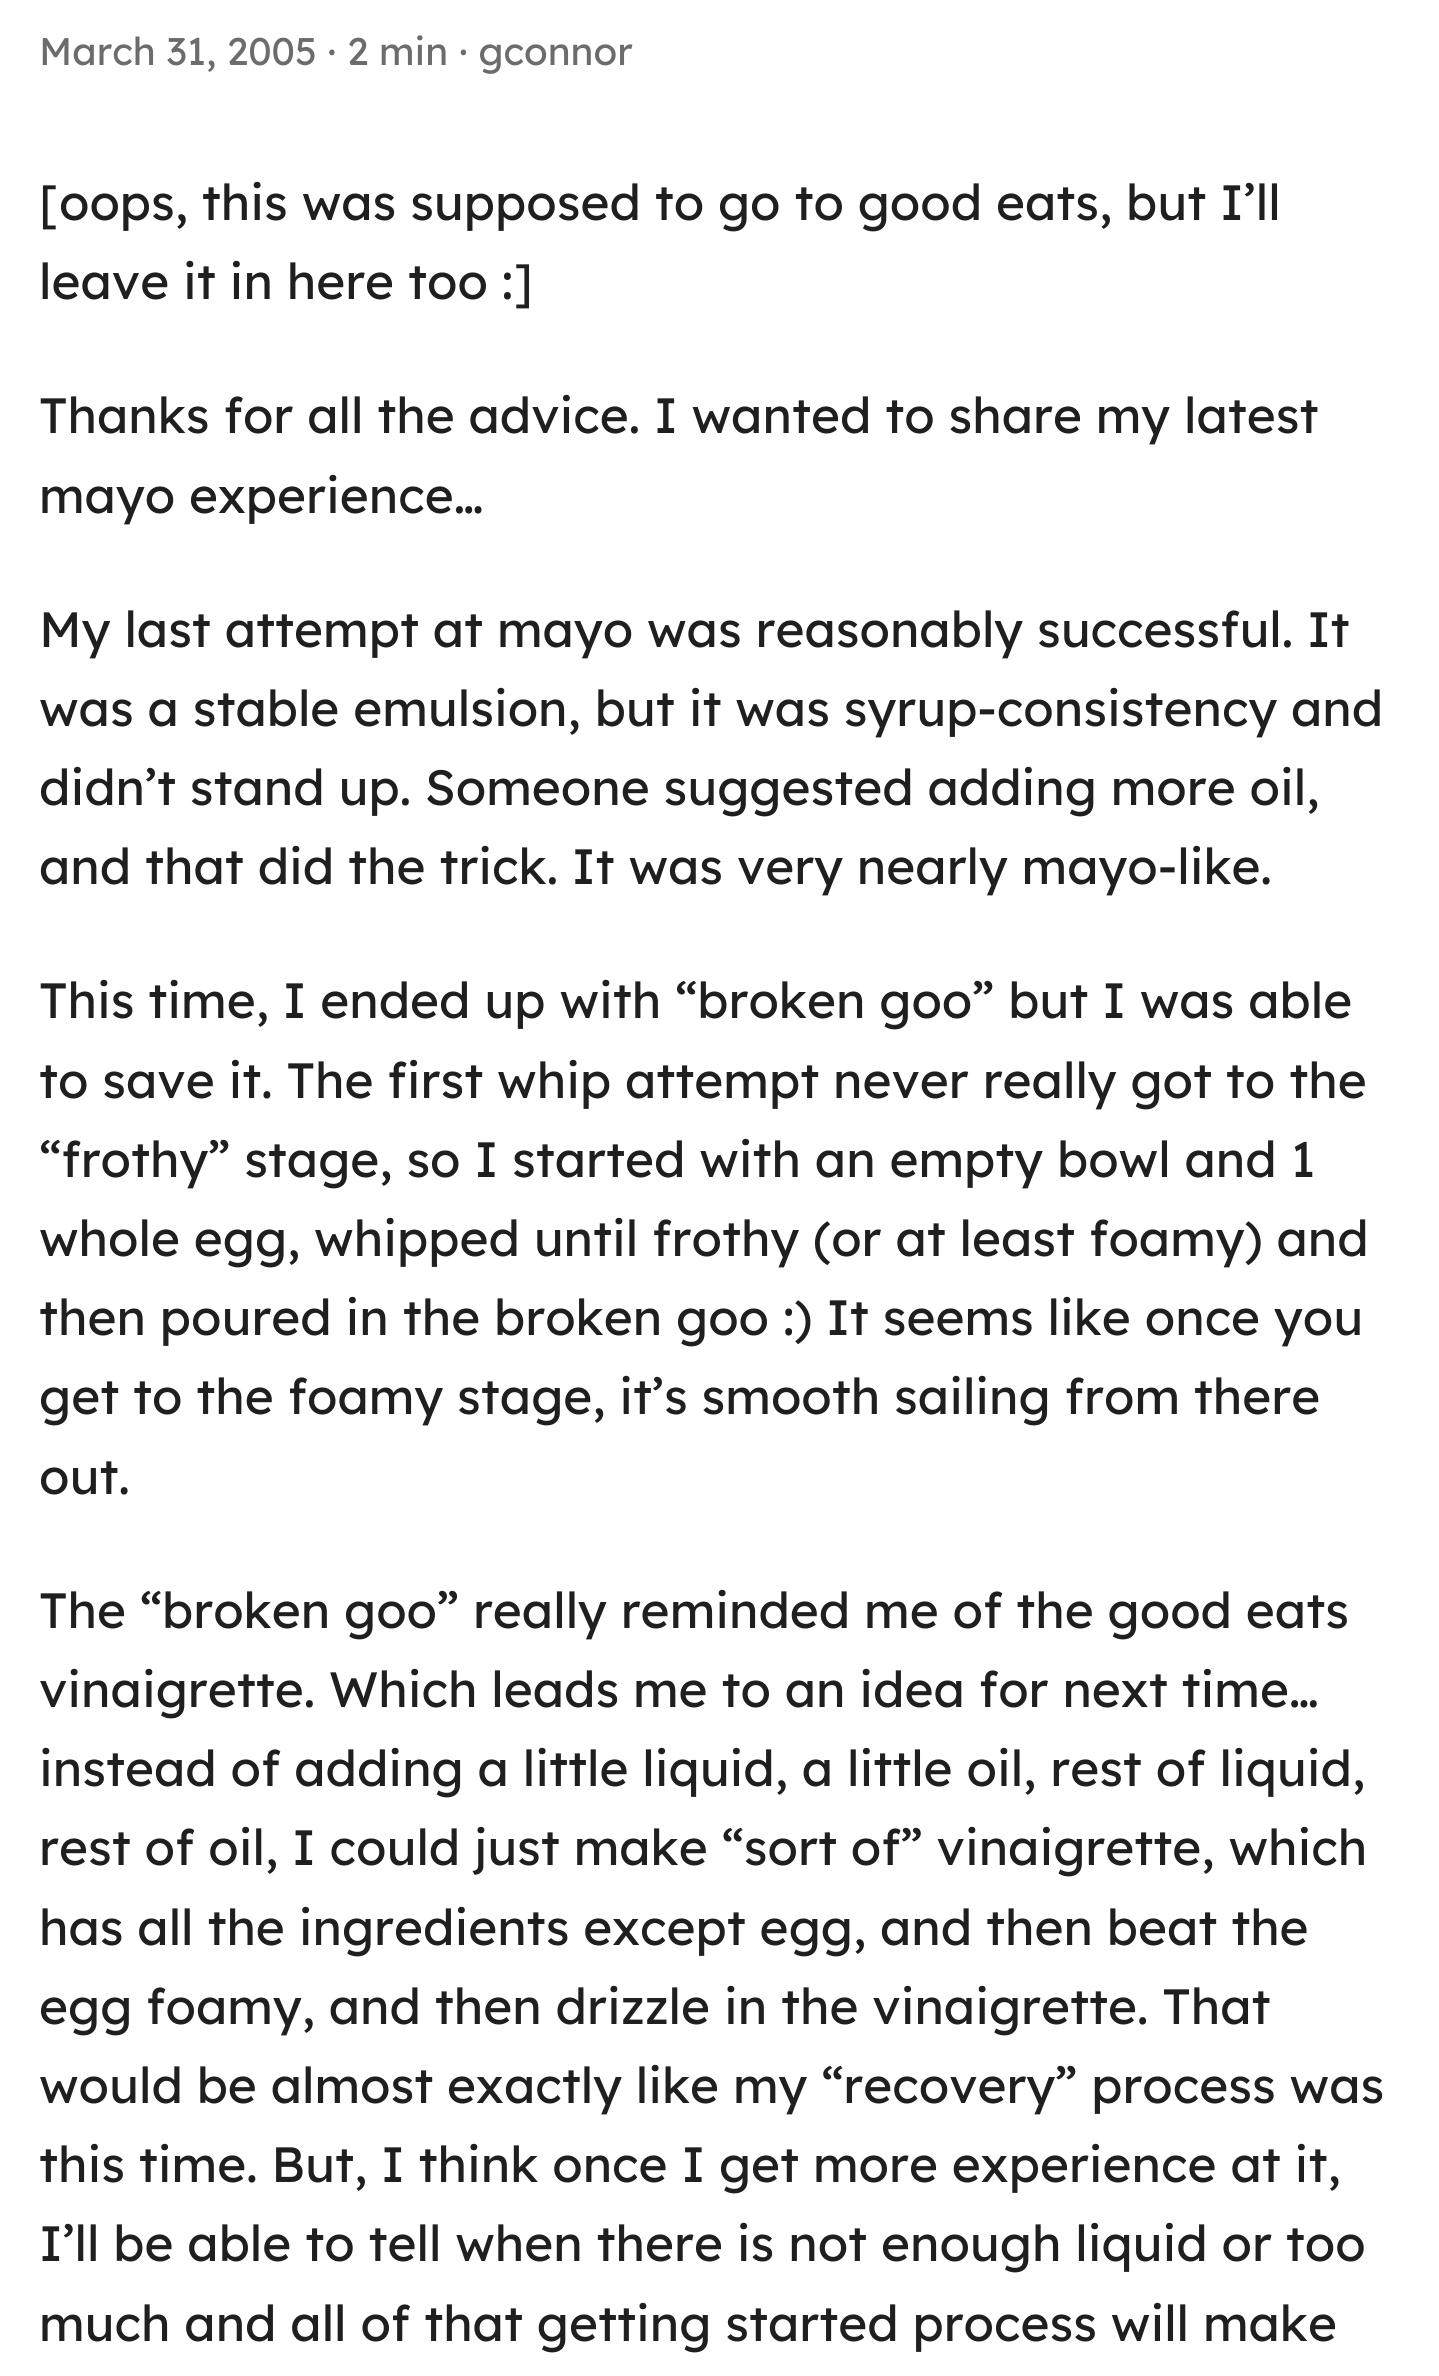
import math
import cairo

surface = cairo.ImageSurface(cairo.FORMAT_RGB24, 1439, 2376)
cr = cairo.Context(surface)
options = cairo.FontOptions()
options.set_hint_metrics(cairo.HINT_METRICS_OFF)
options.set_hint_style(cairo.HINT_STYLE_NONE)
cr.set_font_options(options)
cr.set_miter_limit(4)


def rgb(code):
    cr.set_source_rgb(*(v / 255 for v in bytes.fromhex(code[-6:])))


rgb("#ffffff")
cr.paint()
cr.select_font_face("Lexend")
cr.set_font_size(38.5)
rgb("#6c6c6c")
cr.move_to(39, 65)
cr.show_text("March 31, 2005 · 2 min · gconnor")
cr.set_font_size(49.5)
rgb("#1f1f1f")
for x, y, s in [
    (39, 220, "[oops, this was supposed to go to good eats, but I’ll"),
    (39, 299, "leave it in here too :]"),
    (39, 433, "Thanks for all the advice. I wanted to share my latest"),
    (39, 513, "mayo experience…"),
    (39, 647, "My last attempt at mayo was reasonably successful. It"),
    (39, 726, "was a stable emulsion, but it was syrup-consistency and"),
    (39, 805, "didn’t stand up. Someone suggested adding more oil,"),
    (39, 884, "and that did the trick. It was very nearly mayo-like."),
    (39, 1018, "This time, I ended up with “broken goo” but I was able"),
    (39, 1098, "to save it. The first whip attempt never really got to the"),
    (39, 1177, "“frothy” stage, so I started with an empty bowl and 1"),
    (39, 1256, "whole egg, whipped until frothy (or at least foamy) and"),
    (39, 1335, "then poured in the broken goo :) It seems like once you"),
    (39, 1414, "get to the foamy stage, it’s smooth sailing from there"),
    (39, 1494, "out."),
    (39, 1628, "The “broken goo” really reminded me of the good eats"),
    (39, 1707, "vinaigrette. Which leads me to an idea for next time…"),
    (39, 1786, "instead of adding a little liquid, a little oil, rest of liquid,"),
    (39, 1865, "rest of oil, I could just make “sort of” vinaigrette, which"),
    (39, 1945, "has all the ingredients except egg, and then beat the"),
    (39, 2024, "egg foamy, and then drizzle in the vinaigrette. That"),
    (39, 2103, "would be almost exactly like my “recovery” process was"),
    (39, 2182, "this time. But, I think once I get more experience at it,"),
    (39, 2261, "I’ll be able to tell when there is not enough liquid or too"),
    (39, 2341, "much and all of that getting started process will make"),
]:
    cr.move_to(x, y)
    cr.show_text(s)
surface.write_to_png("page.png")
